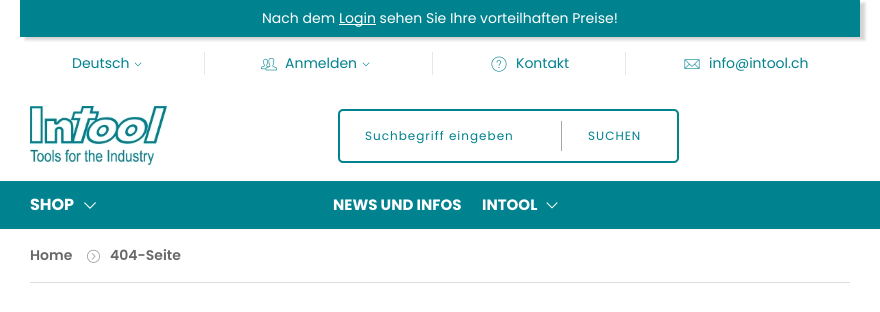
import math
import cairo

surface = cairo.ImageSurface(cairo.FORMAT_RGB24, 880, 312)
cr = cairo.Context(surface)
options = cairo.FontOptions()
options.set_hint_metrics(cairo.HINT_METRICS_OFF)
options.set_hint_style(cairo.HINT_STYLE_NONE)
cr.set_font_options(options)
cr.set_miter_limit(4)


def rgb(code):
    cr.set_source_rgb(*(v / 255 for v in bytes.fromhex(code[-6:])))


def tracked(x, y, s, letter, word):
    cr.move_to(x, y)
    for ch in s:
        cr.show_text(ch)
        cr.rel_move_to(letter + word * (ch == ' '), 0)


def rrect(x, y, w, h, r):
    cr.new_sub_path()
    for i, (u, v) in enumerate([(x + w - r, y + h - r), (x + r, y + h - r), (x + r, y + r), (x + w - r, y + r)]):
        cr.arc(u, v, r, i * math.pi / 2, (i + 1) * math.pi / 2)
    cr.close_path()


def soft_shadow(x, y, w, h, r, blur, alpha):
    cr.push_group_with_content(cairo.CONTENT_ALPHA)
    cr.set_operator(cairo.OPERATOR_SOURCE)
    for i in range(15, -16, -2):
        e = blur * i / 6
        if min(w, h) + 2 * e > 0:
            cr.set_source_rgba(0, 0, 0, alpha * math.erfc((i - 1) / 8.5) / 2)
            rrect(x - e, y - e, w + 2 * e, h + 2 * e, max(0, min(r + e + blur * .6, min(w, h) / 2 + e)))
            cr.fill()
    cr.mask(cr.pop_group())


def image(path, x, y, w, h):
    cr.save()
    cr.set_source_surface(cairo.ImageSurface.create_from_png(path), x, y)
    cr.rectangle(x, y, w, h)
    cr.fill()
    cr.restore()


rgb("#ffffff")
cr.paint()
rgb("#d3d3d3")
soft_shadow(25, 3, 840, 37, 0, 1.5, 1)
for x, y, w, h, color in [
    (20, 0, 840, 37, "#00828f"),
    (339, 24, 37, 1, "#ffffff"),
    (204, 52, 1, 23, "#e7e7e7"),
]:
    rgb(color)
    cr.rectangle(x, y, w, h)
    cr.fill()
image("img/1.png", 134, 62, 8, 5)
cr.rectangle(432, 52, 1, 23)
cr.fill()
image("img/2.png", 261, 57, 16, 14)
image("img/1.png", 362, 62, 8, 5)
cr.rectangle(625, 52, 1, 23)
cr.fill()
image("img/3.png", 491, 56, 16, 16)
image("img/4.png", 684, 59, 16, 10)
image("img/5.png", 30, 106, 137, 59)
rrect(339, 110, 339, 52, 4)
rgb("#00828f")
cr.stroke()
rgb("#a7a7a7")
cr.rectangle(561, 121, 1, 30)
cr.fill()
rgb("#00828f")
cr.rectangle(0, 181, 880, 48)
cr.fill()
image("img/6.png", 84, 202, 12, 7)
image("img/7.png", 546, 202, 12, 7)
rgb("#dcdcdc")
cr.rectangle(30, 282, 820, 1)
cr.fill()
image("img/8.png", 87, 249, 13, 14)
cr.select_font_face("Poppins")
cr.set_font_size(14)
rgb("#ffffff")
cr.move_to(262, 23)
cr.show_text("Nach dem")
cr.move_to(339, 23)
cr.show_text("Login sehen Sie Ihre vorteilhaften Preise!")
rgb("#00828f")
for x, y, s in [
    (72, 68, "Deutsch"),
    (285, 68, "Anmelden"),
    (516, 68, "Kontakt"),
    (709, 68, "info@intool.ch"),
]:
    cr.move_to(x, y)
    cr.show_text(s)
cr.set_font_size(12)
tracked(365, 140, "Suchbegriff eingeben", 1, 0)
tracked(588, 140, "SUCHEN", 1, 0)
cr.select_font_face("Poppins", cairo.FONT_SLANT_NORMAL, cairo.FONT_WEIGHT_BOLD)
cr.set_font_size(16)
rgb("#ffffff")
cr.move_to(30, 210)
cr.show_text("SHOP")
cr.set_font_size(15)
cr.move_to(333, 210)
cr.show_text("NEWS UND INFOS")
cr.move_to(482, 210)
cr.show_text("INTOOL")
cr.select_font_face("Poppins SemiBold")
cr.set_font_size(14)
rgb("#686868")
cr.move_to(30, 260)
cr.show_text("Home")
cr.move_to(110, 260)
cr.show_text("404-Seite")
surface.write_to_png("page.png")
